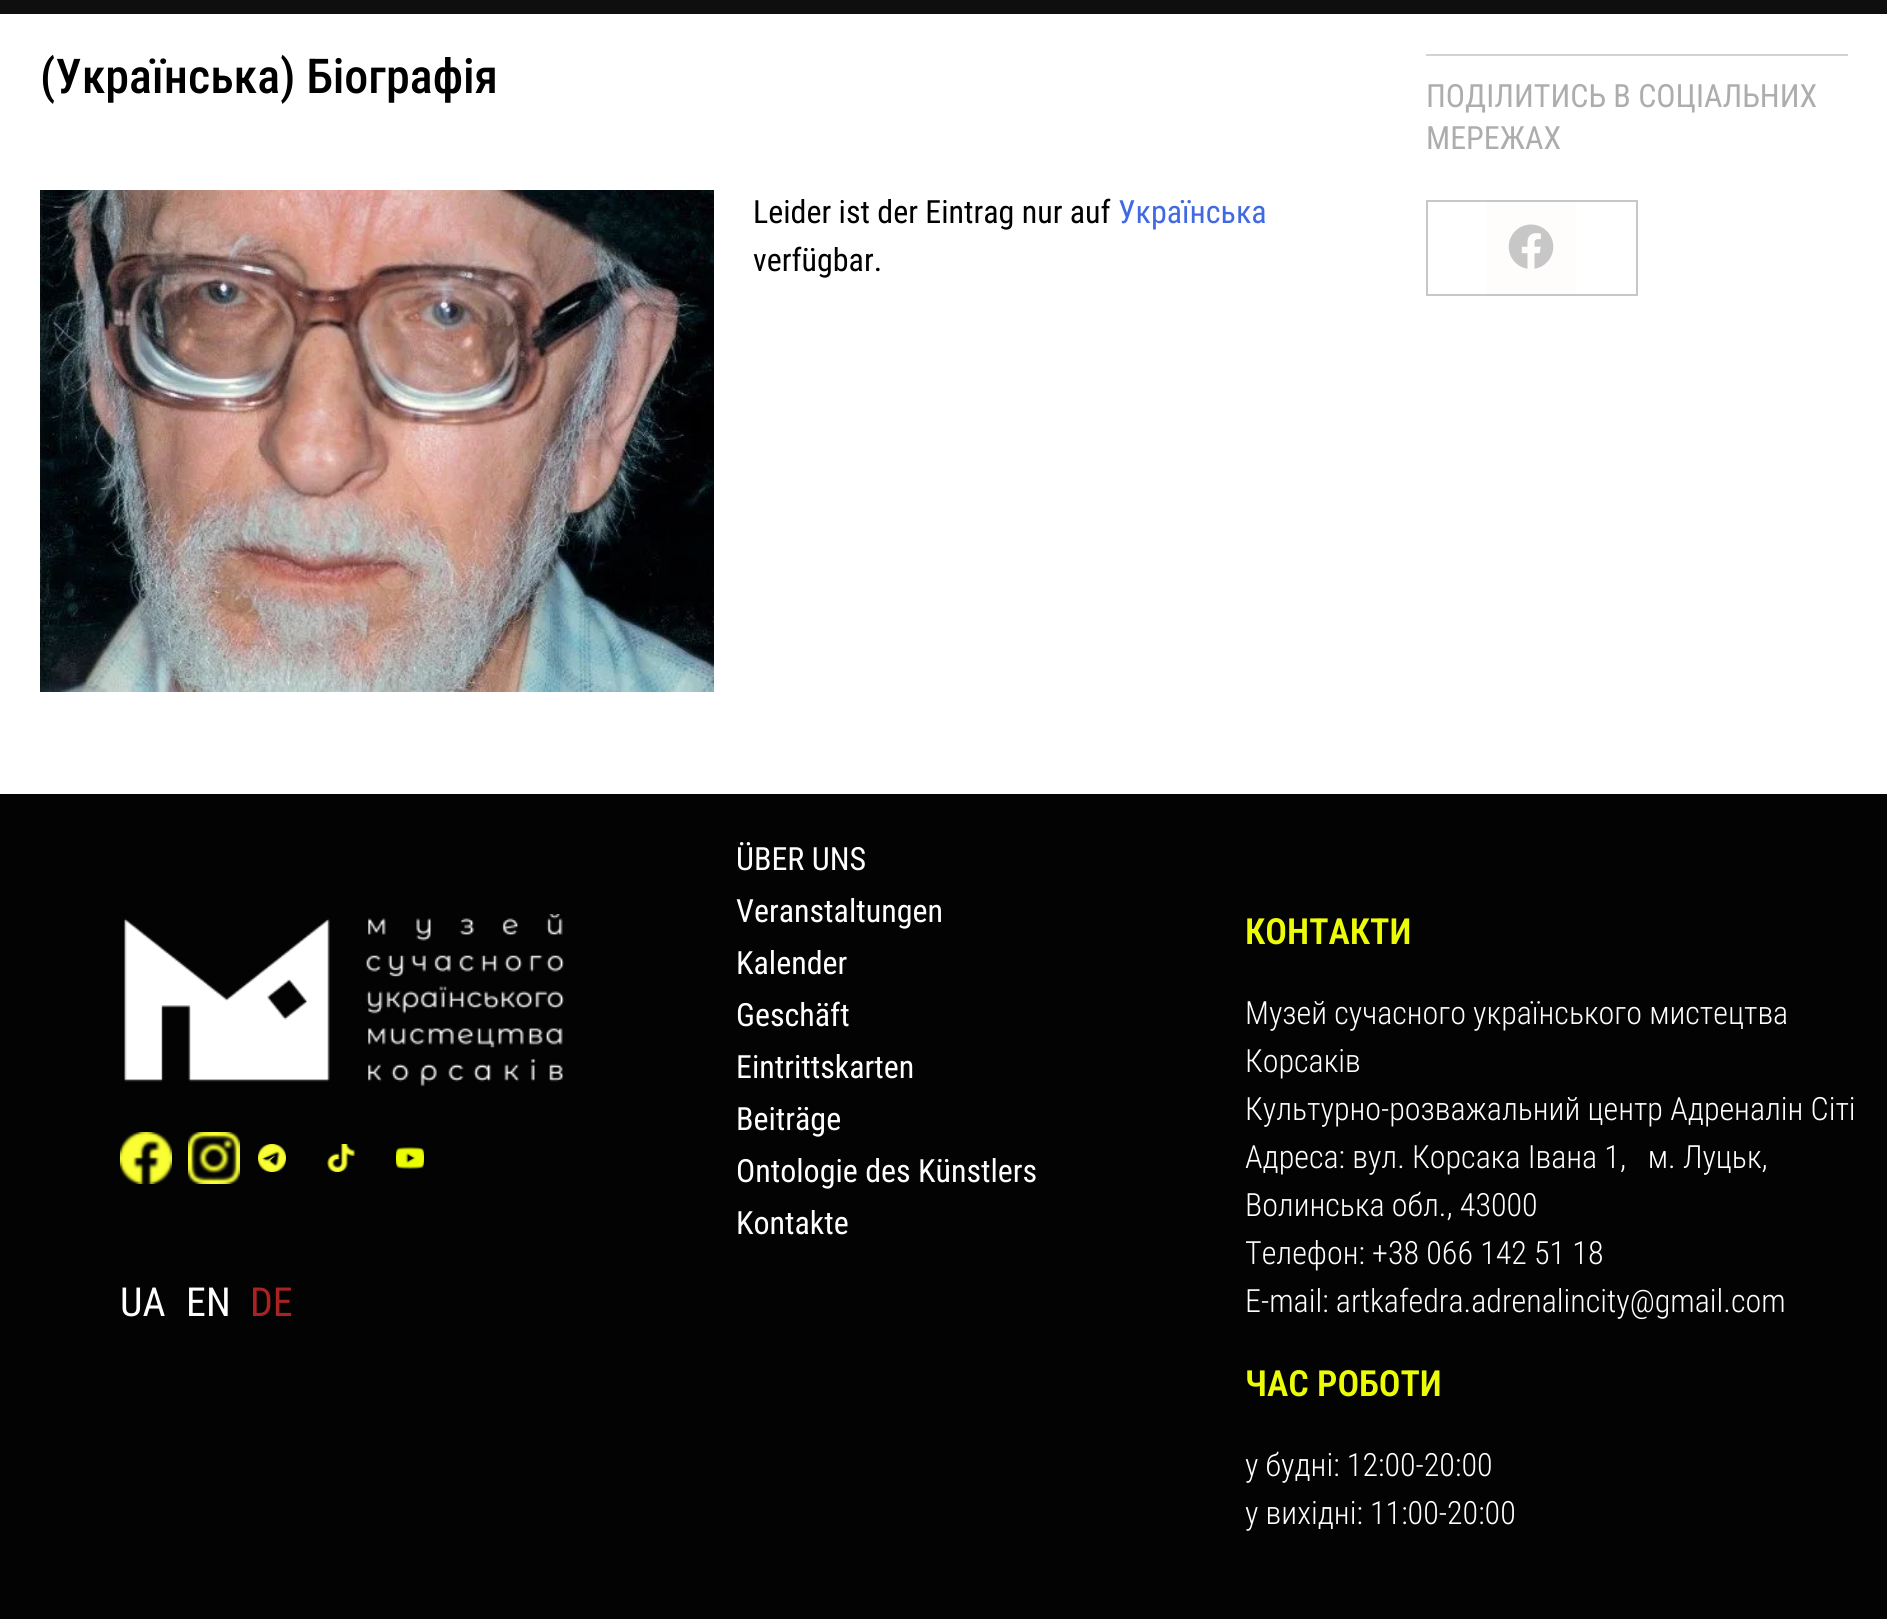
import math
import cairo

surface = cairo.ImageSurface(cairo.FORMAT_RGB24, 1887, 1619)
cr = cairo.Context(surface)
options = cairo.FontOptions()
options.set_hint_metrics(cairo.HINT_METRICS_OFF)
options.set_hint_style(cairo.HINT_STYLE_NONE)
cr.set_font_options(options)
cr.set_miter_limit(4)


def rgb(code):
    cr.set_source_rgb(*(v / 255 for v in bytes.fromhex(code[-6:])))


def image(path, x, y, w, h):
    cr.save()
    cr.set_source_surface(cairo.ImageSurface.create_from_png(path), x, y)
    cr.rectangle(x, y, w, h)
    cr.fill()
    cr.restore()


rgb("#ffffff")
cr.paint()
rgb("#0f0f0f")
cr.rectangle(0, 0, 1887, 14)
cr.fill()
image("img/1.png", 40, 190, 674, 502)
rgb("#d3d3d3")
cr.rectangle(1426, 54, 422, 2)
cr.fill()
cr.rectangle(1427, 201, 210, 94)
rgb("#c7c7c7")
cr.stroke()
rgb("#fffcfc")
cr.rectangle(1486, 202, 90, 92)
cr.fill()
image("img/2.png", 1508, 224, 46, 45)
rgb("#030303")
cr.rectangle(0, 794, 1887, 825)
cr.fill()
image("img/3.png", 124, 914, 440, 173)
image("img/4.png", 120, 1132, 52, 52)
image("img/5.png", 188, 1132, 52, 52)
image("img/6.png", 258, 1144, 28, 28)
image("img/7.png", 327, 1144, 28, 28)
image("img/8.png", 396, 1147, 28, 22)
cr.select_font_face("Roboto Condensed Medium")
cr.set_font_size(48)
rgb("#000000")
cr.move_to(40, 93)
cr.show_text("(Українська) Біографія")
cr.select_font_face("Roboto Condensed")
cr.set_font_size(32)
cr.move_to(753, 223)
cr.show_text("Leider ist der Eintrag nur auf")
rgb("#4169e1")
cr.move_to(1118, 223)
cr.show_text("Українська")
rgb("#000000")
cr.move_to(753, 271)
cr.show_text("verfügbar.")
rgb("#adadad")
cr.move_to(1426, 107)
cr.show_text("ПОДІЛИТИСЬ В СОЦІАЛЬНИХ")
cr.move_to(1426, 149)
cr.show_text("МЕРЕЖАХ")
cr.set_font_size(40)
rgb("#ffffff")
cr.move_to(120, 1316)
cr.show_text("UA")
cr.move_to(186, 1316)
cr.show_text("EN")
rgb("#aa2323")
cr.move_to(250, 1316)
cr.show_text("DE")
cr.set_font_size(32)
rgb("#ffffff")
for x, y, s in [
    (736, 870, "ÜBER UNS"),
    (736, 922, "Veranstaltungen"),
    (736, 974, "Kalender"),
    (736, 1026, "Geschäft"),
    (736, 1078, "Eintrittskarten"),
    (736, 1130, "Beiträge"),
    (736, 1182, "Ontologie des Künstlers"),
    (736, 1234, "Kontakte"),
]:
    cr.move_to(x, y)
    cr.show_text(s)
cr.select_font_face("Roboto Condensed SemiBold")
cr.set_font_size(36)
rgb("#ecfc04")
cr.move_to(1245, 944)
cr.show_text("КОНТАКТИ")
cr.select_font_face("Roboto Condensed Light")
cr.set_font_size(32)
rgb("#ffffff")
for x, y, s in [
    (1245, 1024, "Музей сучасного українського мистецтва"),
    (1245, 1072, "Корсаків"),
    (1245, 1120, "Культурно-розважальний центр Адреналін Сіті"),
    (1245, 1168, "Адреса: вул. Корсака Івана 1,   м. Луцьк,"),
    (1245, 1216, "Волинська обл., 43000"),
    (1245, 1264, "Телефон: +38 066 142 51 18"),
    (1245, 1312, "E-mail: artkafedra.adrenalincity@gmail.com"),
]:
    cr.move_to(x, y)
    cr.show_text(s)
cr.select_font_face("Roboto Condensed SemiBold")
cr.set_font_size(36)
rgb("#ecfc04")
cr.move_to(1245, 1396)
cr.show_text("ЧАС РОБОТИ")
cr.select_font_face("Roboto Condensed Light")
cr.set_font_size(32)
rgb("#ffffff")
cr.move_to(1245, 1476)
cr.show_text("у будні: 12:00-20:00")
cr.move_to(1245, 1524)
cr.show_text("у вихідні: 11:00-20:00")
surface.write_to_png("page.png")
